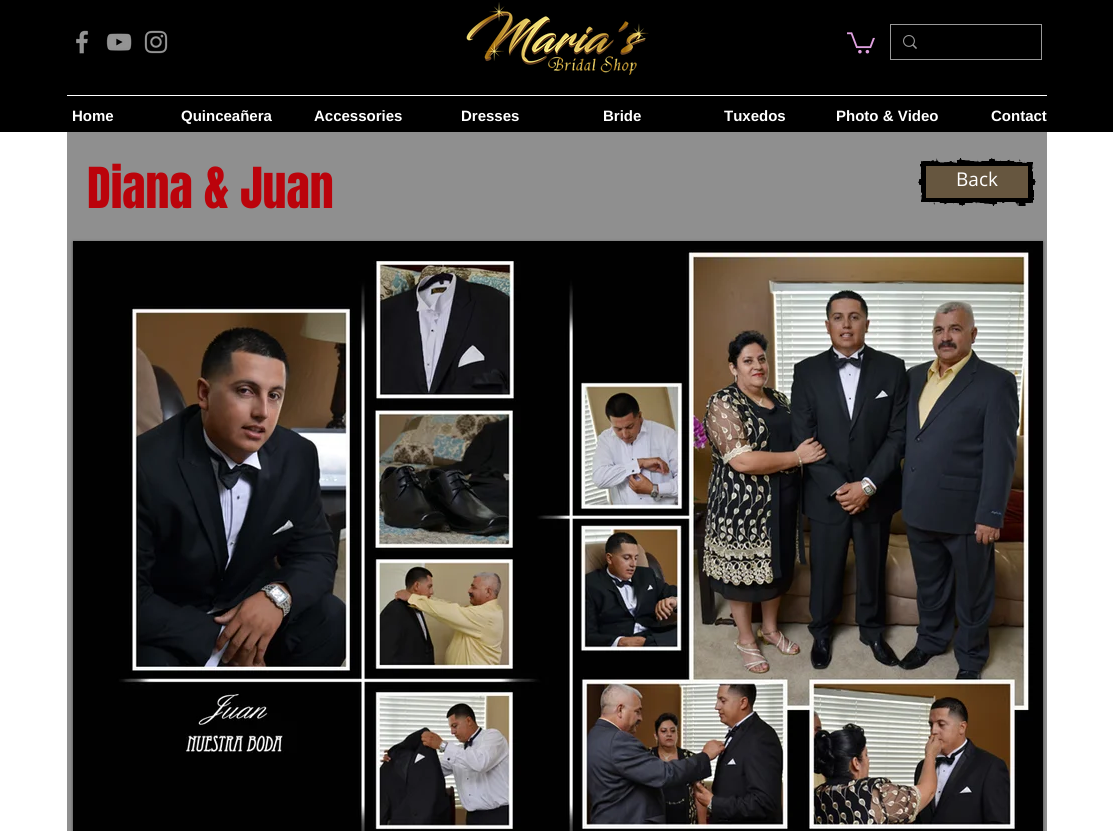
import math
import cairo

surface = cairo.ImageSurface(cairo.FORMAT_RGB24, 1113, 831)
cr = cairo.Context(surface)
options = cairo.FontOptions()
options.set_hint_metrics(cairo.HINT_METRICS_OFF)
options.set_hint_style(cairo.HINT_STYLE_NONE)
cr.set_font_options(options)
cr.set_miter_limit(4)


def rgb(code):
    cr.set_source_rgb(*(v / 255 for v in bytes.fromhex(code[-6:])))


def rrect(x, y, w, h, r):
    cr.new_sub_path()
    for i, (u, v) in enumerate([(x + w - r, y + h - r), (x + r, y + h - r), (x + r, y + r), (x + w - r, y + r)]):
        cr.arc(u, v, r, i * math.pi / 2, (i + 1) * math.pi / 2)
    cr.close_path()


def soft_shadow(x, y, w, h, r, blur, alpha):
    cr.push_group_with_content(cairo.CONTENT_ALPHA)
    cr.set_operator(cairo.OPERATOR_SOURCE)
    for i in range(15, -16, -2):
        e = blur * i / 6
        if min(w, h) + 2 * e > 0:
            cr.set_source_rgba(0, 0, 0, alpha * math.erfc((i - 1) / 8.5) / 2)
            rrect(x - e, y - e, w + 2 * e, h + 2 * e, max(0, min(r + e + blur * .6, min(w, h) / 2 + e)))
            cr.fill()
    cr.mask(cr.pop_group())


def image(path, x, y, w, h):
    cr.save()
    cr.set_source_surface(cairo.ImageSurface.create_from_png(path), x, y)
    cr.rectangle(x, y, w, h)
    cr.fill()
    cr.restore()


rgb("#ffffff")
cr.paint()
rgb("#000000")
cr.rectangle(0, 0, 1113, 132)
cr.fill()
image("img/1.png", 76, 30, 13, 24)
image("img/2.png", 106, 33, 26, 18)
image("img/3.png", 144, 30, 24, 24)
image("img/4.png", 466, 2, 183, 73)
image("img/5.png", 847, 32, 28, 22)
cr.rectangle(890.5, 24.5, 151, 35)
rgb("#999999")
cr.set_line_width(1)
cr.stroke()
image("img/6.png", 903, 35, 14, 14)
rgb("#ffffff")
cr.rectangle(67, 95, 980, 1)
cr.fill()
rgb("#8f8f8f")
cr.rectangle(67, 132, 980, 699)
cr.fill()
image("img/7.png", 918, 158, 109, 44)
image("img/8.png", 928, 162, 108, 44)
rgb("#66563f")
cr.rectangle(926, 166, 102, 32)
cr.fill()
rgb("#000000")
soft_shadow(73, 242, 970, 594, 0, 1.5, 0.5)
image("img/9.png", 73, 241, 970, 590)
cr.select_font_face("Liberation Sans", cairo.FONT_SLANT_NORMAL, cairo.FONT_WEIGHT_BOLD)
cr.set_font_size(15)
rgb("#ffffff")
for x, y, s in [
    (72, 121, "Home"),
    (181, 121, "Quinceañera"),
    (314, 121, "Accessories"),
    (461, 121, "Dresses"),
    (603, 121, "Bride"),
    (724, 121, "Tuxedos"),
    (836, 121, "Photo & Video"),
    (991, 121, "Contact"),
]:
    cr.move_to(x, y)
    cr.show_text(s)
cr.select_font_face("Anton")
cr.set_font_size(48)
rgb("#bb030b")
cr.move_to(87, 208)
cr.show_text("Diana & Juan")
cr.select_font_face("Open Sans")
cr.set_font_size(19)
rgb("#ffffff")
cr.move_to(956, 186)
cr.show_text("Back")
surface.write_to_png("page.png")
